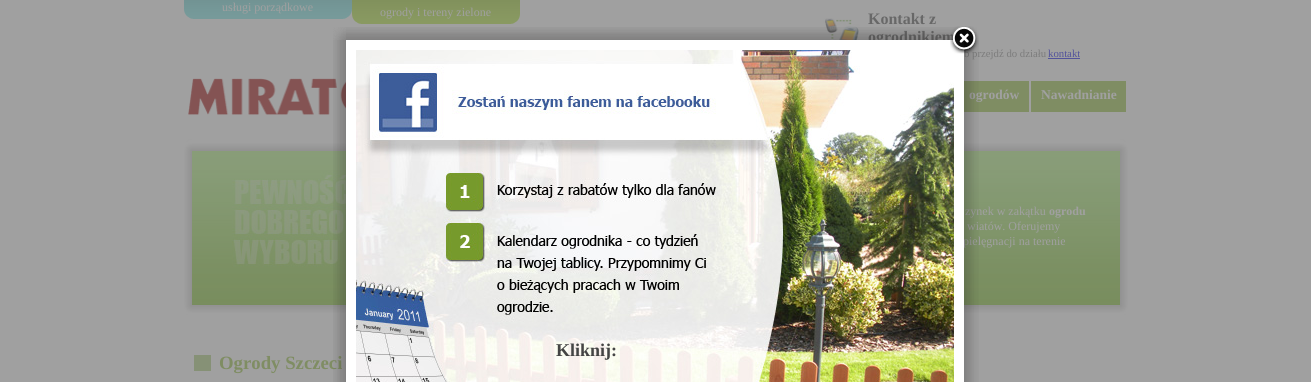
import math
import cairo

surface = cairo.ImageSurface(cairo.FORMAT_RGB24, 1311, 382)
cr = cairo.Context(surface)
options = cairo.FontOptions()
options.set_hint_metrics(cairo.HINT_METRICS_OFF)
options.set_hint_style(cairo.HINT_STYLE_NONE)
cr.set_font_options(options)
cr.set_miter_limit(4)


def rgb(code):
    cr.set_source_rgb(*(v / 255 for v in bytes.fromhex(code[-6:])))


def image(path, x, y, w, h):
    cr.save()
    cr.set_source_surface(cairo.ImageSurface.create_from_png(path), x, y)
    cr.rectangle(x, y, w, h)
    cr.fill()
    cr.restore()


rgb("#a0a0a0")
cr.paint()
image("img/1.png", 184, 0, 168, 19)
image("img/2.png", 352, 0, 168, 24)
image("img/3.png", 823, 18, 44, 22)
rgb("#53539b")
cr.rectangle(1048, 58, 32, 1)
cr.fill()
image("img/4.png", 184, 60, 944, 284)
image("img/5.png", 188, 75, 158, 40)
for x, y, w, h, color in [
    (964, 81, 65, 31, "#7f8d63"),
    (1031, 81, 95, 31, "#7f8d63"),
    (194, 355, 17, 16, "#869176"),
]:
    rgb(color)
    cr.rectangle(x, y, w, h)
    cr.fill()
image("img/6.png", 333, 27, 13, 13)
image("img/9.png", 964, 27, 13, 13)
cr.select_font_face("Liberation Serif")
cr.set_font_size(12)
rgb("#a0a0a0")
cr.move_to(222, 11)
cr.show_text("usługi porządkowe")
cr.move_to(380, 16)
cr.show_text("ogrody i tereny zielone")
cr.select_font_face("Liberation Serif", cairo.FONT_SLANT_NORMAL, cairo.FONT_WEIGHT_BOLD)
cr.set_font_size(16)
rgb("#686868")
cr.move_to(868, 24)
cr.show_text("Kontakt z")
cr.move_to(868, 42)
cr.show_text("ogrodnikiem")
cr.select_font_face("Liberation Serif")
cr.set_font_size(10.75)
rgb("#7c7c7c")
cr.move_to(964, 57)
cr.show_text("b przejdź do działu")
rgb("#53539b")
cr.move_to(1048, 57)
cr.show_text("kontakt")
cr.select_font_face("Liberation Serif", cairo.FONT_SLANT_NORMAL, cairo.FONT_WEIGHT_BOLD)
cr.set_font_size(13.5)
rgb("#a0a0a0")
cr.move_to(969, 99)
cr.show_text("ogrodów")
cr.move_to(1041, 99)
cr.show_text("Nawadnianie")
cr.select_font_face("Liberation Serif")
cr.set_font_size(12)
cr.move_to(965, 215)
cr.show_text("zynek w zakątku")
cr.select_font_face("Liberation Serif", cairo.FONT_SLANT_NORMAL, cairo.FONT_WEIGHT_BOLD)
cr.move_to(1049, 215)
cr.show_text("ogrodu")
cr.select_font_face("Liberation Serif")
cr.move_to(967, 230)
cr.show_text("wiatów. Oferujemy")
cr.move_to(963, 245)
cr.show_text("pielęgnacji na terenie")
cr.select_font_face("Liberation Serif", cairo.FONT_SLANT_NORMAL, cairo.FONT_WEIGHT_BOLD)
cr.set_font_size(18.75)
rgb("#7f8d63")
cr.move_to(219, 369)
cr.show_text("Ogrody Szczeci")
rgb("#ffffff")
cr.rectangle(346, 40, 618, 342)
cr.fill()
image("img/7.png", 346, 27, 618, 13)
image("img/10.png", 333, 40, 13, 342)
image("img/11.png", 356, 50, 598, 332)
cr.set_font_size(18)
rgb("#444444")
cr.move_to(556, 356)
cr.show_text("Kliknij:")
image("img/12.png", 964, 40, 15, 342)
image("img/8.png", 950, 26, 29, 28)
surface.write_to_png("page.png")
